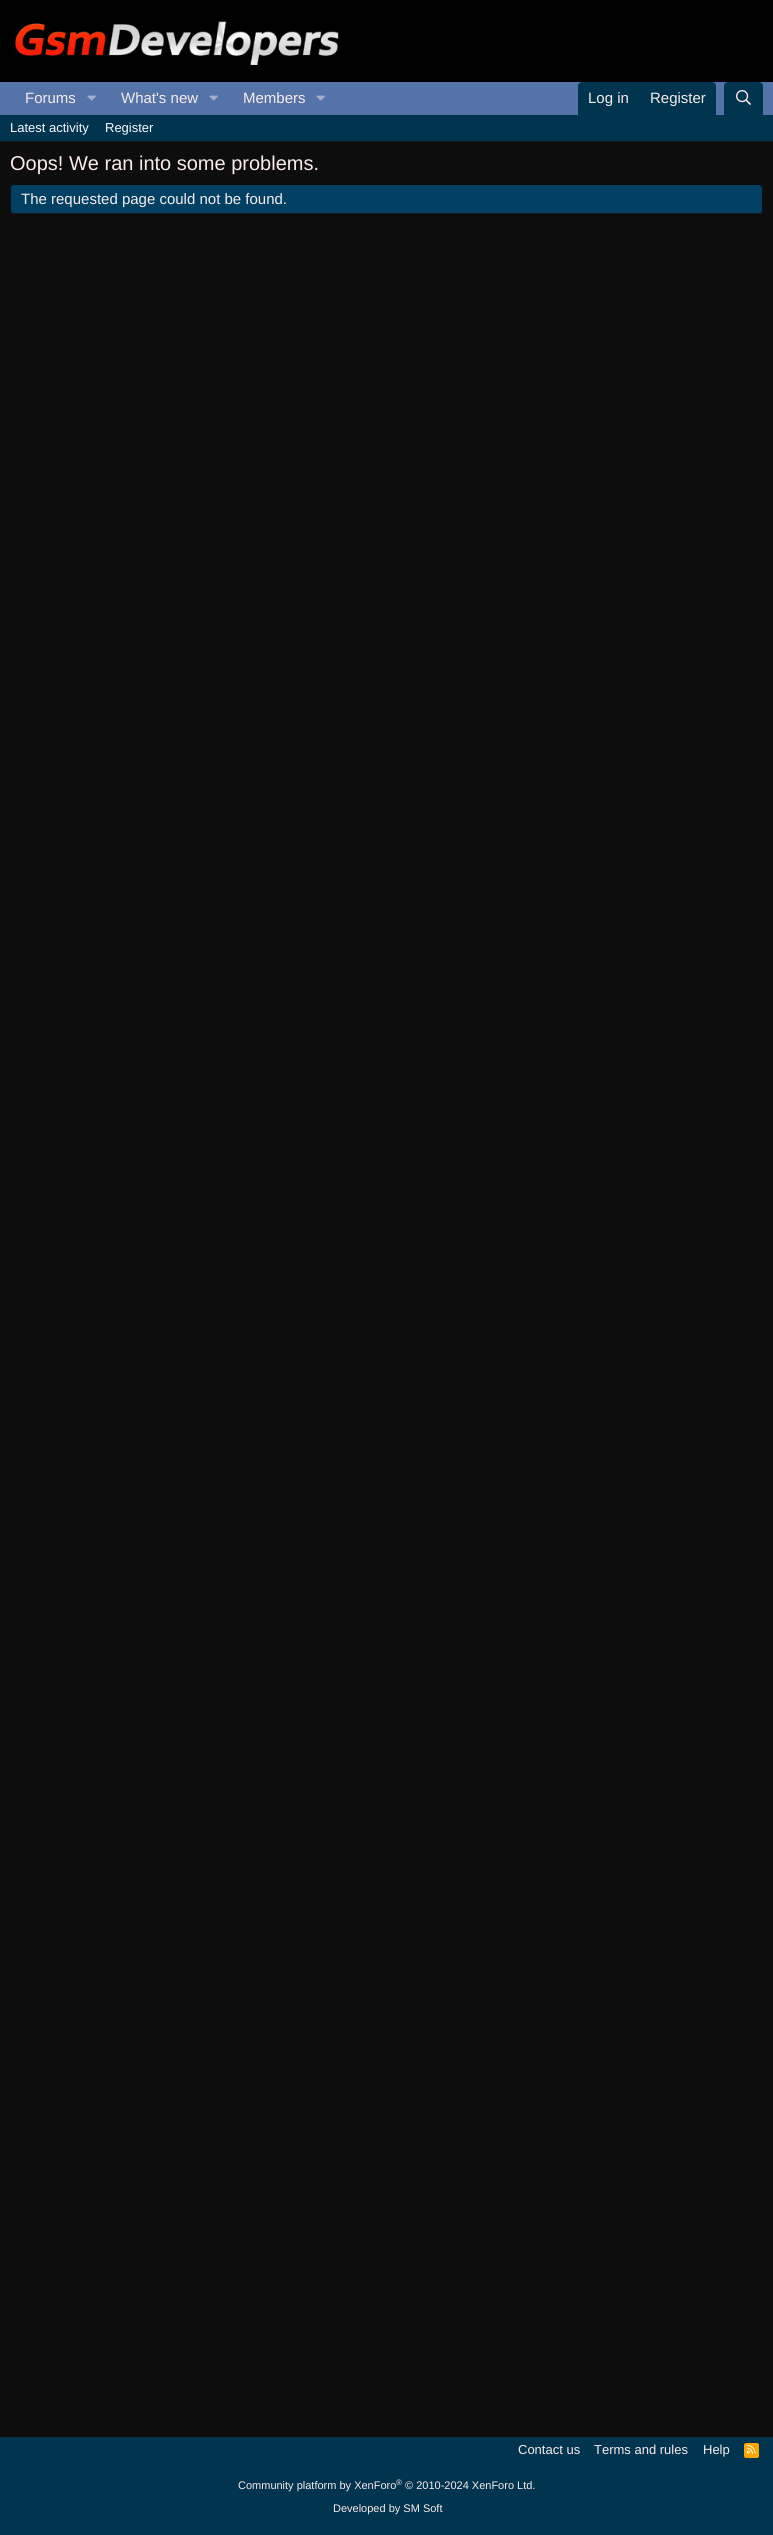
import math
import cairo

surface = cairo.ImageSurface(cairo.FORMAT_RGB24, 773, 2535)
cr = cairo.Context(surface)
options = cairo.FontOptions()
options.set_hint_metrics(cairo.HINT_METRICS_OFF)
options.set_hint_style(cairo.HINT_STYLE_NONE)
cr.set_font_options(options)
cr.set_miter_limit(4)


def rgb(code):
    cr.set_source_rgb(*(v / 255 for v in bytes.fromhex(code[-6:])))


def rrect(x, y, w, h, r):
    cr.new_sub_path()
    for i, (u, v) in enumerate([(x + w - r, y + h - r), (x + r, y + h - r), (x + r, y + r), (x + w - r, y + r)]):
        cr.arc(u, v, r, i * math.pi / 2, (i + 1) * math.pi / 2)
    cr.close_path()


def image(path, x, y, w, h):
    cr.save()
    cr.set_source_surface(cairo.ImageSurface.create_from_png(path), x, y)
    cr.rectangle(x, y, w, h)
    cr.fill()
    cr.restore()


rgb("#0d0d0d")
cr.paint()
rgb("#000000")
cr.rectangle(0, 0, 773, 82)
cr.fill()
image("img/1.png", 15, 21, 324, 44)
rgb("#5373a9")
cr.rectangle(0, 82, 773, 33)
cr.fill()
image("img/2.png", 87, 95, 9, 6)
image("img/2.png", 209, 95, 9, 6)
image("img/2.png", 316, 95, 9, 6)
rgb("#00344f")
cr.new_path()
cr.move_to(582, 82)
cr.line_to(712, 82)
cr.curve_to(714, 82, 716, 84, 716, 86)
cr.line_to(716, 115)
cr.line_to(578, 115)
cr.line_to(578, 86)
cr.curve_to(578, 84, 580, 82, 582, 82)
cr.close_path()
cr.fill()
cr.new_path()
cr.move_to(728, 82)
cr.line_to(759, 82)
cr.curve_to(761, 82, 763, 84, 763, 86)
cr.line_to(763, 115)
cr.line_to(724, 115)
cr.line_to(724, 86)
cr.curve_to(724, 84, 726, 82, 728, 82)
cr.close_path()
cr.fill()
image("img/3.png", 736, 90, 15, 15)
cr.rectangle(0, 115, 773, 26)
cr.fill()
rgb("#171717")
cr.rectangle(0, 141, 773, 1)
cr.fill()
rgb("#004163")
rrect(10, 184, 753, 30, 4)
cr.fill()
cr.new_path()
cr.move_to(11.5, 185.5)
cr.line_to(14, 184.5)
cr.line_to(759, 184.5)
cr.line_to(761.5, 185.5)
rgb("#030303")
cr.set_line_width(1)
cr.stroke()
cr.new_path()
cr.move_to(761.5, 185.5)
cr.curve_to(762, 186, 762.5, 187, 762.5, 188)
cr.line_to(762.5, 210)
cr.curve_to(762.5, 211, 762, 212, 761.5, 212.5)
rgb("#0d0d0d")
cr.stroke()
cr.new_path()
cr.move_to(761.5, 212.5)
cr.line_to(759, 213.5)
cr.line_to(14, 213.5)
cr.line_to(11.5, 212.5)
rgb("#171717")
cr.stroke()
cr.new_path()
cr.move_to(11.5, 212.5)
cr.curve_to(11, 212, 10.5, 211, 10.5, 210)
cr.line_to(10.5, 188)
cr.curve_to(10.5, 187, 11, 186, 11.5, 185.5)
rgb("#0d0d0d")
cr.stroke()
rgb("#00344f")
cr.rectangle(0, 2437, 773, 98)
cr.fill()
rgb("#ffa500")
rrect(744, 2443, 15, 15, 2)
cr.fill()
image("img/4.png", 746, 2444, 10, 10)
cr.select_font_face("Liberation Sans")
cr.set_font_size(15)
rgb("#f9ecea")
for x, y, s in [
    (25, 103, "Forums"),
    (121, 103, "What's new"),
    (243, 103, "Members"),
    (588, 103, "Log in"),
    (650, 103, "Register"),
]:
    cr.move_to(x, y)
    cr.show_text(s)
cr.set_font_size(13)
rgb("#fcfcfc")
cr.move_to(10, 132)
cr.show_text("Latest activity")
cr.move_to(105, 132)
cr.show_text("Register")
cr.set_font_size(20)
rgb("#f9ecea")
cr.move_to(10, 170)
cr.show_text("Oops! We ran into some problems.")
cr.set_font_size(15)
cr.move_to(21, 204)
cr.show_text("The requested page could not be found.")
cr.set_font_size(13)
for x, y, s in [
    (518, 2454, "Contact us"),
    (594, 2454, "Terms and rules"),
    (703, 2454, "Help"),
]:
    cr.move_to(x, y)
    cr.show_text(s)
cr.set_font_size(11)
cr.move_to(238, 2489)
cr.show_text("Community platform by XenForo")
cr.set_font_size(8)
cr.move_to(396, 2485)
cr.show_text("®")
cr.set_font_size(11)
cr.move_to(405, 2489)
cr.show_text("© 2010-2024 XenForo Ltd.")
cr.move_to(333, 2512)
cr.show_text("Developed by SM Soft")
surface.write_to_png("page.png")
